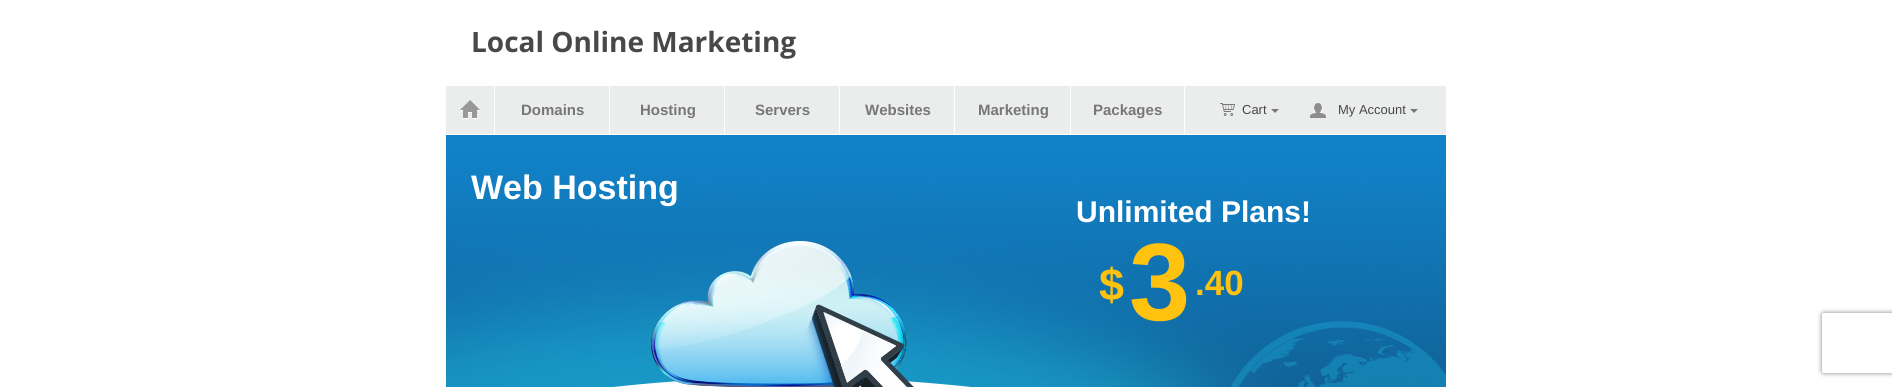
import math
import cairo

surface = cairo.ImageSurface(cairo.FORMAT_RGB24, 1892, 387)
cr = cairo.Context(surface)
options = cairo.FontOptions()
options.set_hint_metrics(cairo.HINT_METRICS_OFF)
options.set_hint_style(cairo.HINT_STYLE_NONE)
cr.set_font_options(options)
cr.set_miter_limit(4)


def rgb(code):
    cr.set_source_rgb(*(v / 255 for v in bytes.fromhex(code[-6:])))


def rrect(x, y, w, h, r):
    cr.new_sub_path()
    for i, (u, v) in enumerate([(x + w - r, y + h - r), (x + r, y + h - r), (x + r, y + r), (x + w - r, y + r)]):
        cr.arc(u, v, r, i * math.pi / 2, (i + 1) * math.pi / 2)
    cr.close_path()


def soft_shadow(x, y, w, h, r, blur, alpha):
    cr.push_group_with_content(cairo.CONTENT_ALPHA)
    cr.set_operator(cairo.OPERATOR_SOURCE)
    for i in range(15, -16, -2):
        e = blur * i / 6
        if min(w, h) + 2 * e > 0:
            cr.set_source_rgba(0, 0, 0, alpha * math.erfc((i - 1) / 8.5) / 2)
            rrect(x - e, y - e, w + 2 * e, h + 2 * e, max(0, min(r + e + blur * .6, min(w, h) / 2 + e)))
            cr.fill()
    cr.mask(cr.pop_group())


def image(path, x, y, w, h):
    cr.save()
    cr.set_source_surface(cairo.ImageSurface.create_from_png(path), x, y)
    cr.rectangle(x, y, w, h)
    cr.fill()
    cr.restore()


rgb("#ffffff")
cr.paint()
rgb("#ebecec")
cr.rectangle(446, 86, 1000, 48)
cr.fill()
image("img/1.png", 460, 100, 20, 19)
for x, y, w, h, color in [
    (494, 86, 1, 48, "#ffffff"),
    (609, 86, 1, 48, "#ffffff"),
    (724, 86, 1, 48, "#ffffff"),
    (839, 86, 1, 48, "#ffffff"),
    (954, 86, 1, 48, "#ffffff"),
    (1070, 86, 1, 48, "#ffffff"),
    (1184, 86, 1, 48, "#ffffff"),
]:
    rgb(color)
    cr.rectangle(x, y, w, h)
    cr.fill()
image("img/2.png", 1220, 103, 15, 13)
rgb("#777777")
cr.new_path()
cr.move_to(1271, 109)
cr.line_to(1279, 109)
cr.line_to(1275, 113)
cr.close_path()
cr.fill()
image("img/3.png", 1310, 103, 16, 15)
cr.new_path()
cr.move_to(1410, 109)
cr.line_to(1418, 109)
cr.line_to(1414, 113)
cr.close_path()
cr.fill()
image("img/4.png", 446, 135, 1000, 252)
cr.save()
cr.set_fill_rule(cairo.FILL_RULE_EVEN_ODD)
cr.new_path()
cr.move_to(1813, 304)
cr.line_to(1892, 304)
cr.line_to(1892, 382)
cr.line_to(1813, 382)
cr.close_path()
cr.move_to(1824, 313)
cr.line_to(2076, 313)
cr.curve_to(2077, 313, 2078, 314, 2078, 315)
cr.line_to(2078, 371)
cr.curve_to(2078, 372, 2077, 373, 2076, 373)
cr.line_to(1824, 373)
cr.curve_to(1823, 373, 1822, 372, 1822, 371)
cr.line_to(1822, 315)
cr.curve_to(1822, 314, 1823, 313, 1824, 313)
cr.close_path()
cr.clip()
rgb("#808080")
soft_shadow(1822, 313, 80, 60, 2, 2.5, 1)
cr.restore()
cr.select_font_face("Open Sans", cairo.FONT_SLANT_NORMAL, cairo.FONT_WEIGHT_BOLD)
cr.set_font_size(28)
rgb("#484848")
cr.move_to(471, 52)
cr.show_text("Local Online Marketing")
cr.select_font_face("Liberation Sans", cairo.FONT_SLANT_NORMAL, cairo.FONT_WEIGHT_BOLD)
cr.set_font_size(15)
rgb("#777777")
for x, y, s in [
    (521, 115, "Domains"),
    (640, 115, "Hosting"),
    (755, 115, "Servers"),
    (865, 115, "Websites"),
    (978, 115, "Marketing"),
    (1093, 115, "Packages"),
]:
    cr.move_to(x, y)
    cr.show_text(s)
cr.select_font_face("Liberation Sans")
cr.set_font_size(13)
rgb("#484848")
cr.move_to(1242, 114)
cr.show_text("Cart")
cr.move_to(1338, 114)
cr.show_text("My Account")
cr.select_font_face("Liberation Sans", cairo.FONT_SLANT_NORMAL, cairo.FONT_WEIGHT_BOLD)
cr.set_font_size(34)
rgb("#ffffff")
cr.move_to(471, 199)
cr.show_text("Web Hosting")
cr.set_font_size(30)
cr.move_to(1076, 222)
cr.show_text("Unlimited Plans!")
cr.set_font_size(45)
rgb("#ffc20e")
cr.move_to(1099, 300)
cr.show_text("$")
cr.set_font_size(110)
cr.move_to(1129, 320)
cr.show_text("3")
cr.set_font_size(35)
cr.move_to(1195, 295)
cr.show_text(".40")
surface.write_to_png("page.png")
